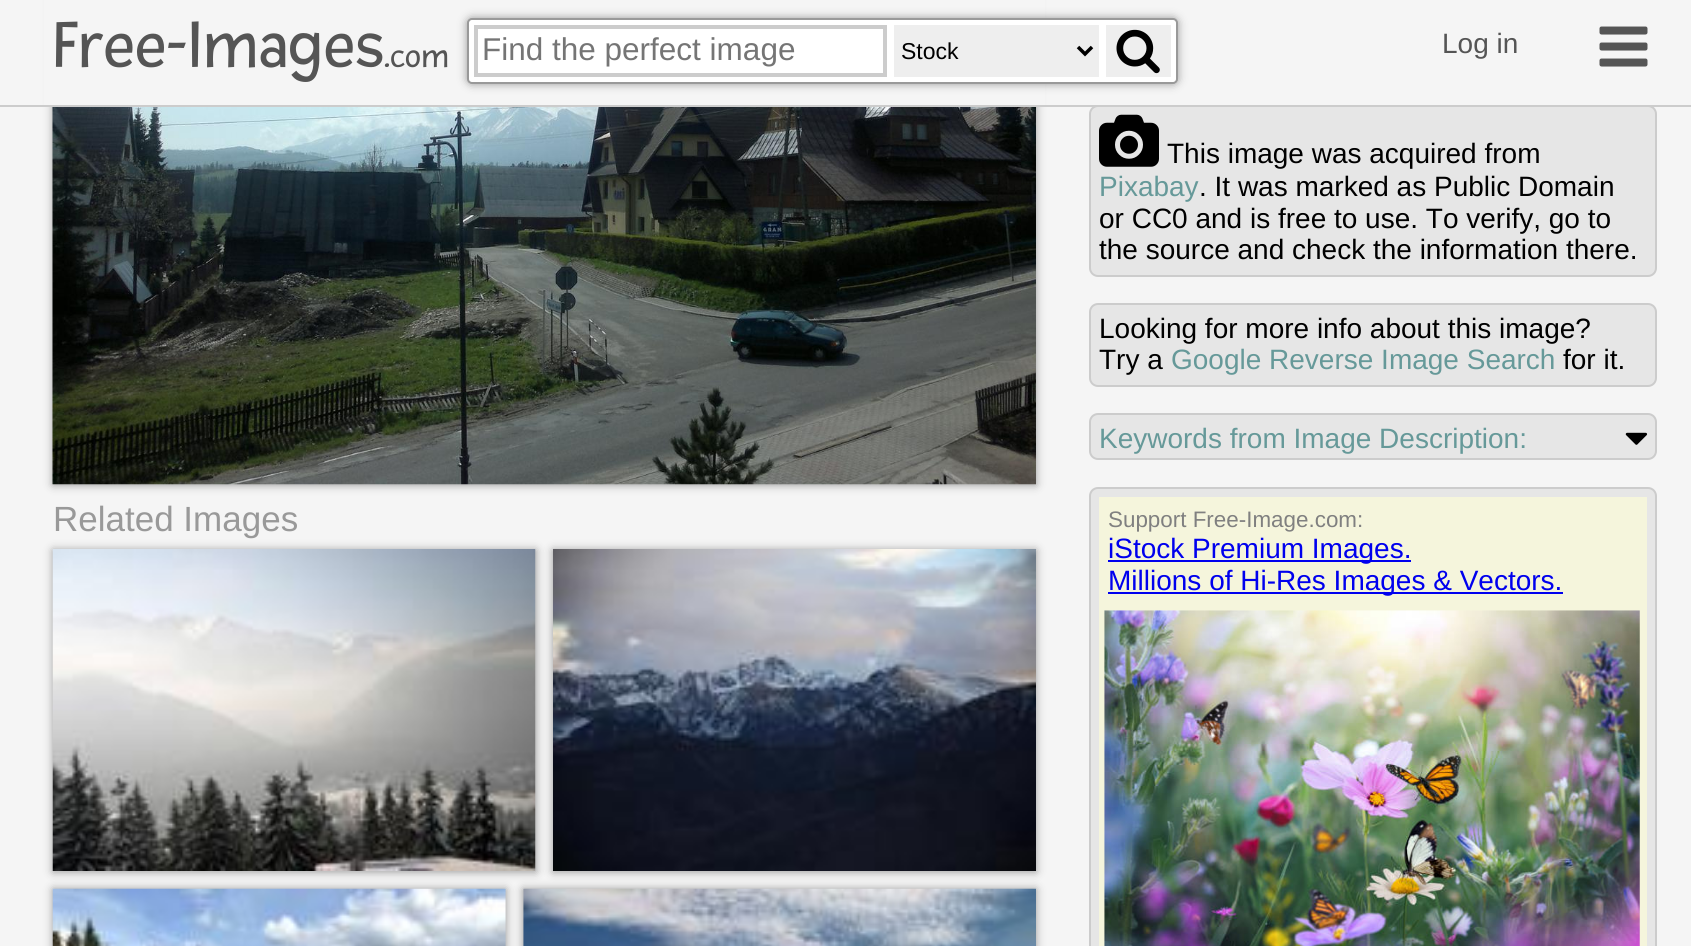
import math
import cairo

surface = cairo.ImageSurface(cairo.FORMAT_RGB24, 1691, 946)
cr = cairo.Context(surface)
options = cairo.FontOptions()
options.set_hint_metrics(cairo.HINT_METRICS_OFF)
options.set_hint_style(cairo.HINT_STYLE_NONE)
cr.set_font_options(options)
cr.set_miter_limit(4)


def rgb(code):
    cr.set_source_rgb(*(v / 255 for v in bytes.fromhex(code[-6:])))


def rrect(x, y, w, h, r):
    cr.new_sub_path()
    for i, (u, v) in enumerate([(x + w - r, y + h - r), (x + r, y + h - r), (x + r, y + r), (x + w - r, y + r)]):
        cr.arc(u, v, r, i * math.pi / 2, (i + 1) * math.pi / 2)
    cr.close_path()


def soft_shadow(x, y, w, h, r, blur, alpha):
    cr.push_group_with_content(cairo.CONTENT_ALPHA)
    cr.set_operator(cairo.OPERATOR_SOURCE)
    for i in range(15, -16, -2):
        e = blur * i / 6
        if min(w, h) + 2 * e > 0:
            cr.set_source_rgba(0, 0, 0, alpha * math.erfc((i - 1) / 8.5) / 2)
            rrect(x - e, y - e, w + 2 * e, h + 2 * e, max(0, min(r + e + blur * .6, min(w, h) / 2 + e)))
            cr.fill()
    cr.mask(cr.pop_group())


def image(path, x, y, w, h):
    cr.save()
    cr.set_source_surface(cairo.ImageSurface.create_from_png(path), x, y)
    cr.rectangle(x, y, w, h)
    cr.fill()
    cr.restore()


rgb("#f5f5f5")
cr.paint()
rgb("#999999")
soft_shadow(53, -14, 983, 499, 0, 4.5, 1)
rgb("#f5f5f5")
cr.rectangle(44, 0, 1001, 105)
cr.fill()
rgb("#e6e6e6")
rrect(1090, 106, 566, 170, 8)
cr.fill_preserve()
rgb("#cccccc")
cr.stroke()
cr.rectangle(0, 105, 1691, 2)
cr.fill()
rgb("#999999")
soft_shadow(467, 18, 711, 66, 5, 4.5, 1)
rgb("#ffffff")
rrect(468, 19, 709, 64, 4)
cr.fill_preserve()
rgb("#999999")
cr.stroke()
cr.rectangle(476, 27, 409, 48)
rgb("#cccccc")
cr.set_line_width(4)
cr.stroke()
rgb("#eeeeee")
cr.rectangle(894, 25, 205, 52)
cr.fill()
cr.new_path()
cr.move_to(1078, 47)
cr.line_to(1085, 54)
cr.line_to(1092, 47)
rgb("#000000")
cr.set_line_width(3.5)
cr.stroke()
rgb("#eeeeee")
cr.rectangle(1106, 25, 65, 52)
cr.fill()
image("img/1.png", 1116, 29, 44, 45)
image("img/2.png", 1599, 26, 49, 41)
image("img/3.png", 52, 107, 984, 378)
rgb("#999999")
soft_shadow(53, 550, 483, 322, 0, 4.5, 1)
image("img/4.png", 52, 549, 484, 322)
soft_shadow(553, 550, 483, 322, 0, 4.5, 1)
image("img/5.png", 553, 549, 483, 322)
soft_shadow(53, 889, 453, 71, 0, 4.5, 1)
image("img/6.png", 52, 888, 454, 58)
soft_shadow(523, 889, 513, 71, 0, 4.5, 1)
image("img/7.png", 523, 888, 513, 58)
image("img/8.png", 1099, 114, 60, 53)
rgb("#e6e6e6")
rrect(1090, 304, 566, 82, 8)
cr.fill_preserve()
rgb("#cccccc")
cr.set_line_width(2)
cr.stroke()
rgb("#e6e6e6")
rrect(1090, 414, 566, 45, 8)
cr.fill_preserve()
rgb("#cccccc")
cr.stroke()
image("img/9.png", 1625, 432, 23, 13)
rgb("#e6e6e6")
rrect(1090, 488, 566, 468, 8)
cr.fill_preserve()
rgb("#cccccc")
cr.stroke()
for x, y, w, h, color in [
    (1099, 497, 548, 449, "#f5f5dc"),
    (1108, 560, 303, 2, "#0000ee"),
    (1108, 592, 455, 2, "#0000ee"),
]:
    rgb(color)
    cr.rectangle(x, y, w, h)
    cr.fill()
image("img/10.png", 1104, 610, 536, 336)
cr.select_font_face("Fresca")
cr.set_font_size(70)
rgb("#555555")
cr.move_to(53, 67)
cr.show_text("Free-Images")
cr.set_font_size(35)
cr.move_to(384, 67)
cr.show_text(".com")
cr.select_font_face("Liberation Sans")
cr.set_font_size(31.5)
rgb("#757575")
cr.move_to(482, 60)
cr.show_text("Find the perfect image")
cr.set_font_size(23)
rgb("#000000")
cr.move_to(901, 59)
cr.show_text("Stock")
cr.set_font_size(28)
rgb("#555555")
cr.move_to(1442, 53)
cr.show_text("Log in")
cr.set_font_size(35)
rgb("#999999")
cr.move_to(53, 531)
cr.show_text("Related Images")
cr.set_font_size(28)
rgb("#000000")
cr.move_to(1167, 163)
cr.show_text("This image was acquired from")
rgb("#669999")
cr.move_to(1099, 196)
cr.show_text("Pixabay")
rgb("#000000")
for x, y, s in [
    (1199, 196, ". It was marked as Public Domain"),
    (1099, 228, "or CC0 and is free to use. To verify, go to"),
    (1099, 259, "the source and check the information there."),
    (1099, 338, "Looking for more info about this image?"),
    (1099, 369, "Try a"),
]:
    cr.move_to(x, y)
    cr.show_text(s)
rgb("#669999")
cr.move_to(1171, 369)
cr.show_text("Google Reverse Image Search")
rgb("#000000")
cr.move_to(1563, 369)
cr.show_text("for it.")
rgb("#669999")
cr.move_to(1099, 448)
cr.show_text("Keywords from Image Description:")
cr.set_font_size(22.4)
rgb("#808080")
cr.move_to(1108, 527)
cr.show_text("Support Free-Image.com:")
cr.set_font_size(28)
rgb("#0000ee")
cr.move_to(1108, 558)
cr.show_text("iStock Premium Images.")
cr.move_to(1108, 590)
cr.show_text("Millions of Hi-Res Images & Vectors.")
surface.write_to_png("page.png")
